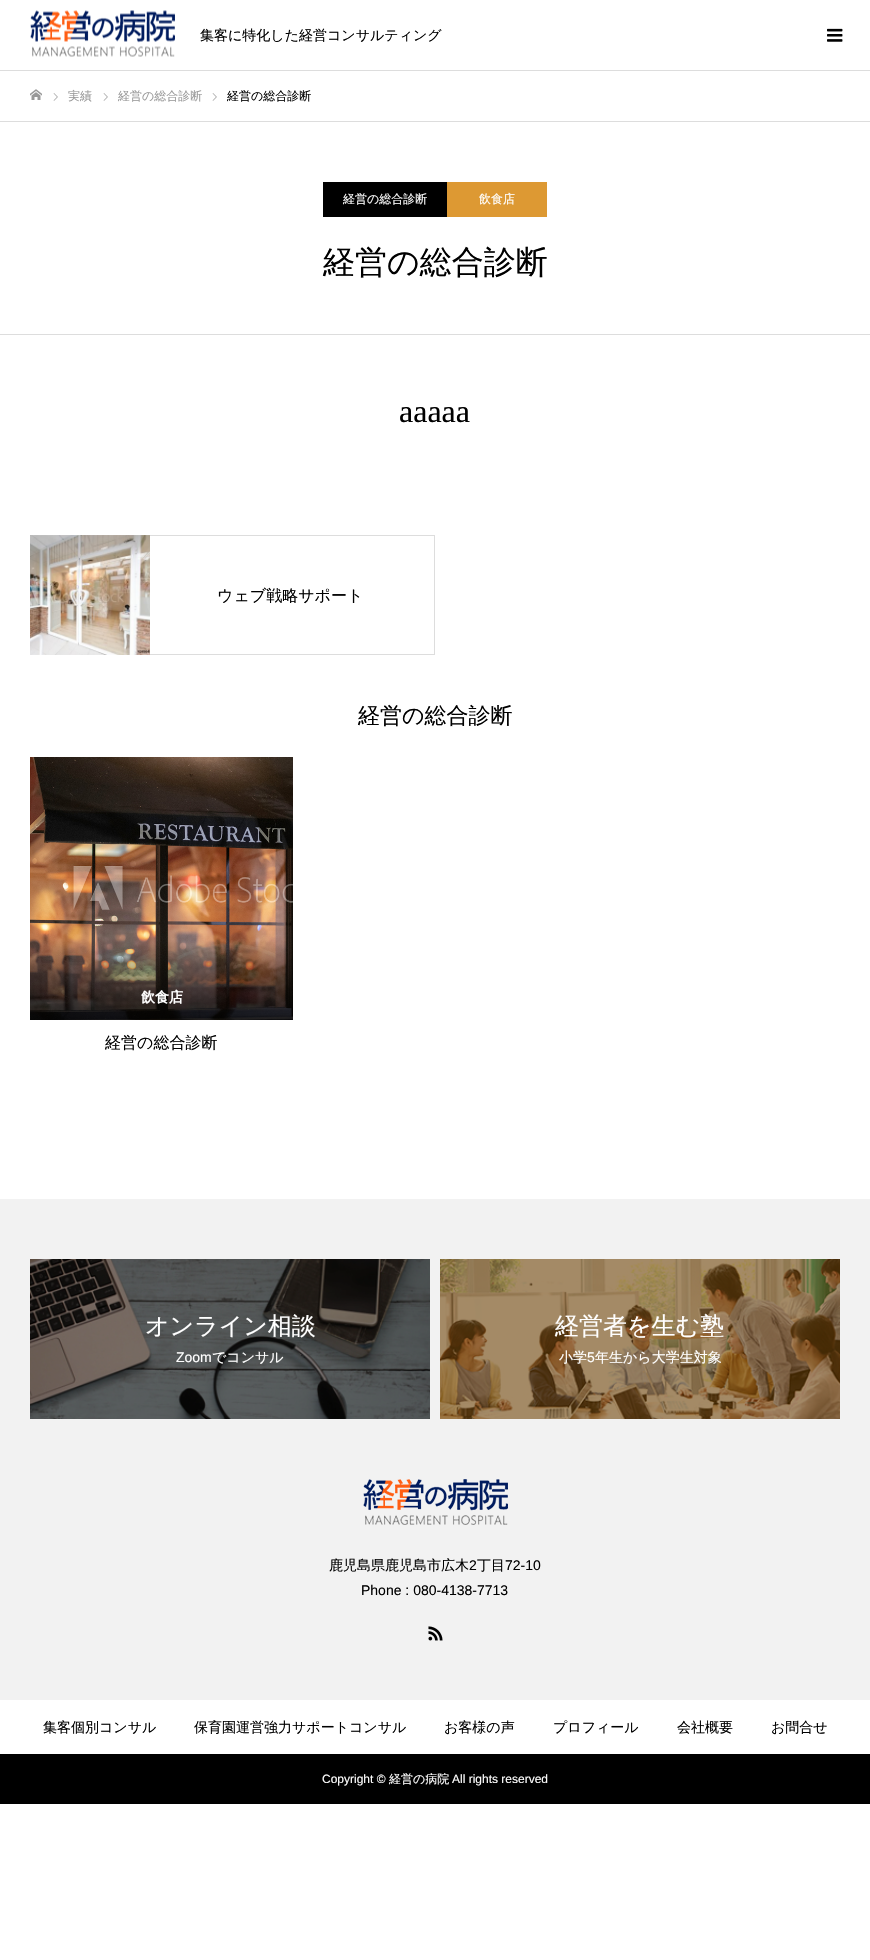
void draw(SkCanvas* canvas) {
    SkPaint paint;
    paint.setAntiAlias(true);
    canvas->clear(0xFFFFFFFF);
    canvas->drawImageRect(SkImages::DeferredFromEncodedData(SkData::MakeFromFileName("img1.png")), SkRect::MakeXYWH(30, 10, 145, 47), SkSamplingOptions());
    SkFont font1(fontMgr->matchFamilyStyle("WenQuanYi Zen Hei", SkFontStyle(500, SkFontStyle::kNormal_Width, SkFontStyle::kUpright_Slant)), 14);
    font1.setSubpixel(true);
    paint.setColor(0xFF000000);
    canvas->drawString("集客に特化した経営コンサルティング", 200, 40, font1, paint);
    canvas->drawImageRect(SkImages::DeferredFromEncodedData(SkData::MakeFromFileName("img2.png")), SkRect::MakeXYWH(827, 28, 16, 14), SkSamplingOptions());
    paint.setColor(0xFFDDDDDD);
    canvas->drawRect(SkRect::MakeXYWH(0, 70, 870, 1), paint);
    canvas->drawRect(SkRect::MakeXYWH(0, 121, 870, 1), paint);
    canvas->drawImageRect(SkImages::DeferredFromEncodedData(SkData::MakeFromFileName("img3.png")), SkRect::MakeXYWH(30, 89, 12, 11), SkSamplingOptions());
    canvas->drawImageRect(SkImages::DeferredFromEncodedData(SkData::MakeFromFileName("img4.png")), SkRect::MakeXYWH(53, 93, 5, 8), SkSamplingOptions());
    SkFont font2(fontMgr->matchFamilyStyle("WenQuanYi Zen Hei", SkFontStyle(500, SkFontStyle::kNormal_Width, SkFontStyle::kUpright_Slant)), 12);
    font2.setSubpixel(true);
    paint.setColor(0xFF999999);
    canvas->drawString("実績", 68, 100, font2, paint);
    canvas->drawImageRect(SkImages::DeferredFromEncodedData(SkData::MakeFromFileName("img4.png")), SkRect::MakeXYWH(103, 93, 5, 8), SkSamplingOptions());
    canvas->drawString("経営の総合診断", 118, 100, font2, paint);
    canvas->drawImageRect(SkImages::DeferredFromEncodedData(SkData::MakeFromFileName("img4.png")), SkRect::MakeXYWH(212, 93, 5, 8), SkSamplingOptions());
    paint.setColor(0xFF000000);
    canvas->drawString("経営の総合診断", 227, 100, font2, paint);
    paint.setColor(0xFFDDDDDD);
    canvas->drawRect(SkRect::MakeXYWH(0, 334, 870, 1), paint);
    paint.setColor(0xFF000000);
    canvas->drawRect(SkRect::MakeXYWH(323, 182, 124, 35), paint);
    paint.setColor(0xFFFFFFFF);
    canvas->drawString("経営の総合診断", 343, 203, font2, paint);
    paint.setColor(0xFFDD9933);
    canvas->drawRect(SkRect::MakeXYWH(447, 182, 100, 35), paint);
    paint.setColor(0xFFFFFFFF);
    canvas->drawString("飲食店", 479, 203, font2, paint);
    SkFont font3(fontMgr->matchFamilyStyle("WenQuanYi Zen Hei", SkFontStyle(500, SkFontStyle::kNormal_Width, SkFontStyle::kUpright_Slant)), 32);
    font3.setSubpixel(true);
    paint.setColor(0xFF000000);
    canvas->drawString("経営の総合診断", 323, 273, font3, paint);
    SkFont font4(fontMgr->matchFamilyStyle("Liberation Serif", SkFontStyle::Normal()), 32);
    font4.setSubpixel(true);
    canvas->drawString("aaaaa", 399, 422, font4, paint);
    paint.setStyle(SkPaint::kStroke_Style);
    paint.setStrokeWidth(1);
    paint.setColor(0xFFDDDDDD);
    canvas->drawRect(SkRect::MakeXYWH(30.5f, 535.5f, 404, 119), paint);
    canvas->drawImageRect(SkImages::DeferredFromEncodedData(SkData::MakeFromFileName("img5.png")), SkRect::MakeXYWH(30, 535, 120, 120), SkSamplingOptions());
    SkFont font5(fontMgr->matchFamilyStyle("WenQuanYi Zen Hei", SkFontStyle(500, SkFontStyle::kNormal_Width, SkFontStyle::kUpright_Slant)), 16);
    font5.setSubpixel(true);
    paint.setStyle(SkPaint::kFill_Style);
    paint.setColor(0xFF000000);
    canvas->drawString("ウェブ戦略サポート", 217, 601, font5, paint);
    SkFont font6(fontMgr->matchFamilyStyle("WenQuanYi Zen Hei", SkFontStyle(500, SkFontStyle::kNormal_Width, SkFontStyle::kUpright_Slant)), 22);
    font6.setSubpixel(true);
    canvas->drawString("経営の総合診断", 358, 723, font6, paint);
    canvas->drawImageRect(SkImages::DeferredFromEncodedData(SkData::MakeFromFileName("img6.png")), SkRect::MakeXYWH(30, 757, 263, 263), SkSamplingOptions());
    SkFont font7(fontMgr->matchFamilyStyle("WenQuanYi Zen Hei", SkFontStyle::Bold()), 14);
    font7.setSubpixel(true);
    paint.setColor(0xFFFFFFFF);
    canvas->drawString("飲食店", 141, 1002, font7, paint);
    paint.setColor(0xFF000000);
    canvas->drawString("経営の総合診断", 105, 1048, font5, paint);
    paint.setColor(0xFFF2F2F2);
    canvas->drawRect(SkRect::MakeXYWH(0, 1199, 870, 501), paint);
    canvas->drawImageRect(SkImages::DeferredFromEncodedData(SkData::MakeFromFileName("img7.png")), SkRect::MakeXYWH(30, 1259, 400, 160), SkSamplingOptions());
    SkFont font8(fontMgr->matchFamilyStyle("WenQuanYi Zen Hei", SkFontStyle(500, SkFontStyle::kNormal_Width, SkFontStyle::kUpright_Slant)), 24);
    font8.setSubpixel(true);
    paint.setColor(0xFFFFFFFF);
    canvas->drawString("オンライン相談", 145, 1334, font8, paint);
    SkFont font9(fontMgr->matchFamilyStyle("Liberation Sans", SkFontStyle::Normal()), 14);
    font9.setSubpixel(true);
    canvas->drawString("Zoom", 176, 1362, font9, paint);
    canvas->drawString("でコンサル", 212, 1362, font1, paint);
    canvas->drawImageRect(SkImages::DeferredFromEncodedData(SkData::MakeFromFileName("img8.png")), SkRect::MakeXYWH(440, 1259, 400, 160), SkSamplingOptions());
    canvas->drawString("経営者を生む塾", 555, 1334, font8, paint);
    canvas->drawString("小学", 559, 1362, font1, paint);
    canvas->drawString("5", 587, 1362, font9, paint);
    canvas->drawString("年生から大学生対象", 595, 1362, font1, paint);
    canvas->drawImageRect(SkImages::DeferredFromEncodedData(SkData::MakeFromFileName("img9.png")), SkRect::MakeXYWH(363, 1479, 145, 46), SkSamplingOptions());
    paint.setColor(0xFF000000);
    canvas->drawString("鹿児島県鹿児島市広木", 329, 1570, font1, paint);
    canvas->drawString("2", 469, 1570, font9, paint);
    canvas->drawString("丁目", 477, 1570, font1, paint);
    canvas->drawString("72-10", 505, 1570, font9, paint);
    canvas->drawString("Phone : 080-4138-7713", 361, 1595, font9, paint);
    canvas->drawImageRect(SkImages::DeferredFromEncodedData(SkData::MakeFromFileName("img10.png")), SkRect::MakeXYWH(428, 1626, 15, 15), SkSamplingOptions());
    canvas->drawString("集客個別コンサル", 43, 1732, font1, paint);
    canvas->drawString("保育園運営強力サポートコンサル", 194, 1732, font1, paint);
    canvas->drawString("お客様の声", 444, 1732, font1, paint);
    canvas->drawString("プロフィール", 553, 1732, font1, paint);
    canvas->drawString("会社概要", 677, 1732, font1, paint);
    canvas->drawString("お問合せ", 771, 1732, font1, paint);
    canvas->drawRect(SkRect::MakeXYWH(0, 1754, 870, 50), paint);
    SkFont font10(fontMgr->matchFamilyStyle("Liberation Sans", SkFontStyle::Normal()), 12);
    font10.setSubpixel(true);
    paint.setColor(0xFFFFFFFF);
    canvas->drawString("Copyright ©", 322, 1783, font10, paint);
    canvas->drawString("経営の病院", 389, 1783, font2, paint);
    canvas->drawString("All rights reserved", 452, 1783, font10, paint);
}
